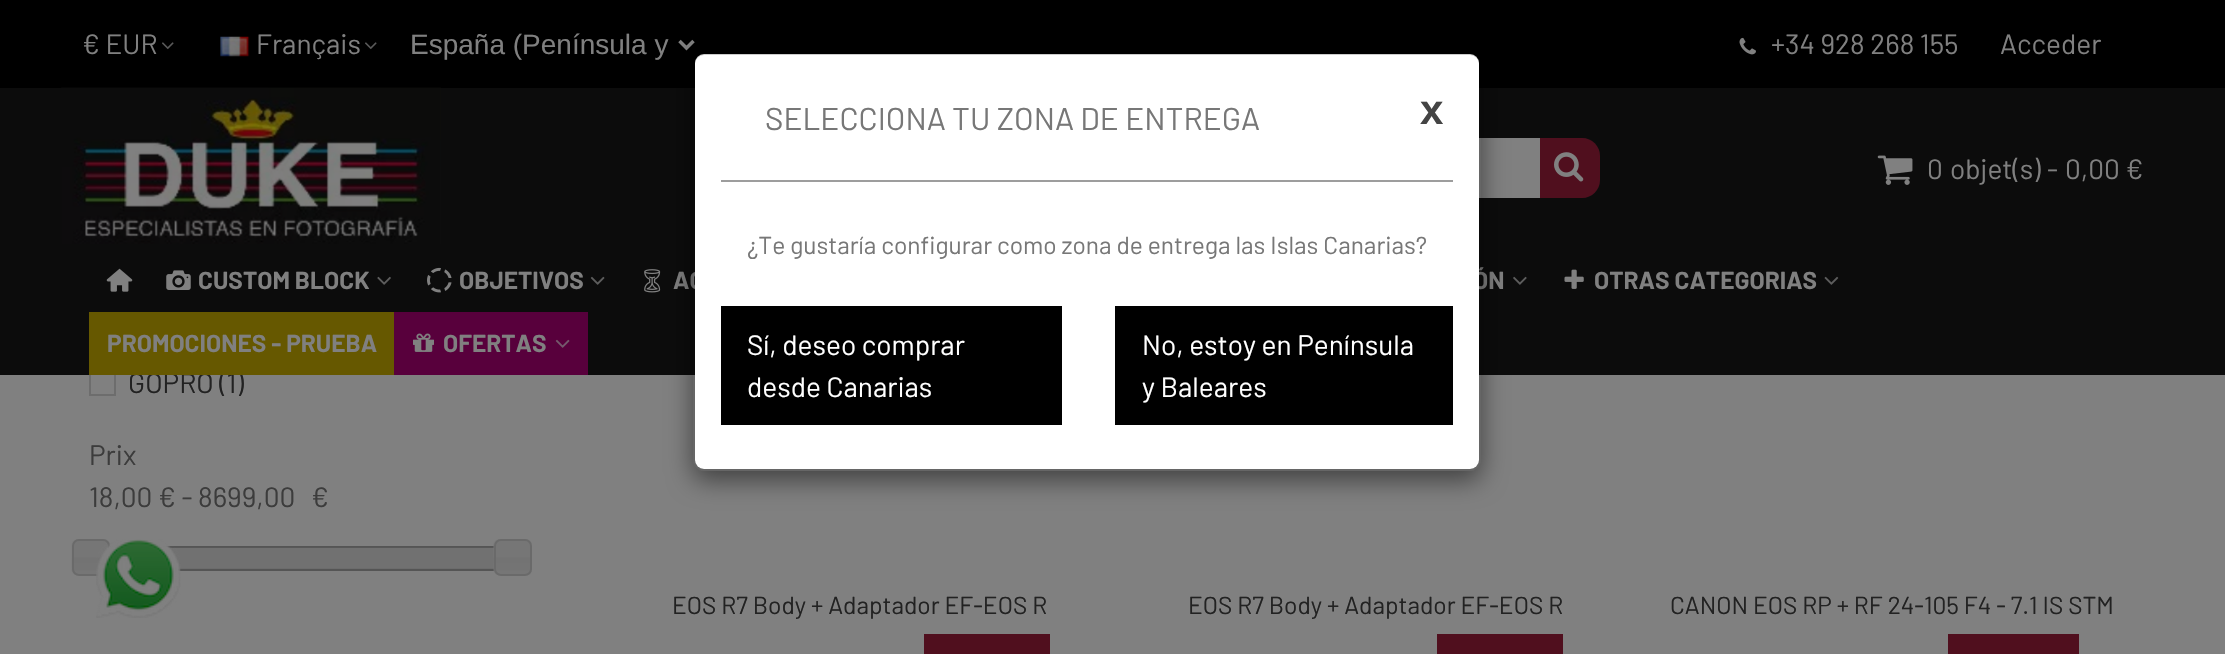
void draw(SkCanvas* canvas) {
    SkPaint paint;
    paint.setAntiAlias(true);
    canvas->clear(0xFF808080);
    paint.setColor(0xFF000000);
    canvas->drawRect(SkRect::MakeXYWH(0, 0, 2225, 88), paint);
    SkFont font1(fontMgr->matchFamilyStyle("Barlow", SkFontStyle::Normal()), 28);
    font1.setSubpixel(true);
    paint.setColor(0xFF808080);
    canvas->drawString("€ EUR", 82, 54, font1, paint);
    canvas->drawImageRect(SkImages::DeferredFromEncodedData(SkData::MakeFromFileName("img1.png")), SkRect::MakeXYWH(162, 42, 12, 8), SkSamplingOptions());
    canvas->drawImageRect(SkImages::DeferredFromEncodedData(SkData::MakeFromFileName("img2.png")), SkRect::MakeXYWH(220, 36, 30, 21), SkSamplingOptions());
    canvas->drawString("Français", 256, 54, font1, paint);
    canvas->drawImageRect(SkImages::DeferredFromEncodedData(SkData::MakeFromFileName("img1.png")), SkRect::MakeXYWH(365, 42, 12, 8), SkSamplingOptions());
    paint.setStyle(SkPaint::kStroke_Style);
    paint.setStrokeWidth(3.5f);
    canvas->drawPath(SkPathBuilder().moveTo(679.5f, 41).lineTo(686.5f, 48).lineTo(693.5f, 41).detach(), paint);
    SkFont font2(fontMgr->matchFamilyStyle("Liberation Sans", SkFontStyle::Normal()), 28);
    font2.setSubpixel(true);
    paint.setStyle(SkPaint::kFill_Style);
    canvas->drawString("España (Península y", 410, 54, font2, paint);
    canvas->drawImageRect(SkImages::DeferredFromEncodedData(SkData::MakeFromFileName("img3.png")), SkRect::MakeXYWH(1739, 37, 17, 18), SkSamplingOptions());
    canvas->drawString("+34 928 268 155", 1771, 54, font1, paint);
    canvas->drawString("Acceder", 2000, 54, font1, paint);
    paint.setStyle(SkPaint::kStroke_Style);
    paint.setStrokeWidth(2);
    paint.setColor(0xFF6D6D6D);
    canvas->drawRect(SkRect::MakeXYWH(90, 370, 25, 25), paint);
    paint.setStyle(SkPaint::kFill_Style);
    paint.setColor(0xFF222222);
    canvas->drawString("GOPRO (1)", 128, 393, font1, paint);
    paint.setColor(0xFF0C0C0C);
    canvas->drawRect(SkRect::MakeXYWH(0, 88, 2225, 287), paint);
    canvas->drawImageRect(SkImages::DeferredFromEncodedData(SkData::MakeFromFileName("img4.png")), SkRect::MakeXYWH(61, 87, 380, 157), SkSamplingOptions());
    paint.setColor(0xFF808080);
    canvas->drawRect(SkRect::MakeXYWH(1479, 138, 61, 60), paint);
    paint.setColor(0xFF500F1E);
    canvas->drawPath(SkPathBuilder().moveTo(1540, 138).lineTo(1582, 138).cubicTo(1592, 138, 1600, 146, 1600, 156).lineTo(1600, 180).cubicTo(1600, 190, 1592, 198, 1582, 198).lineTo(1540, 198).close().detach(), paint);
    canvas->drawImageRect(SkImages::DeferredFromEncodedData(SkData::MakeFromFileName("img5.png")), SkRect::MakeXYWH(1554, 152, 30, 30), SkSamplingOptions());
    canvas->drawImageRect(SkImages::DeferredFromEncodedData(SkData::MakeFromFileName("img6.png")), SkRect::MakeXYWH(1877, 155, 36, 30), SkSamplingOptions());
    paint.setColor(0xFF808080);
    canvas->drawString("0", 1927, 179, font1, paint);
    canvas->drawString("objet(s)", 1950, 179, font1, paint);
    canvas->drawString("-", 2047, 179, font1, paint);
    canvas->drawString("0,00 €", 2065, 179, font1, paint);
    canvas->drawImageRect(SkImages::DeferredFromEncodedData(SkData::MakeFromFileName("img7.png")), SkRect::MakeXYWH(106, 268, 27, 24), SkSamplingOptions());
    canvas->drawImageRect(SkImages::DeferredFromEncodedData(SkData::MakeFromFileName("img8.png")), SkRect::MakeXYWH(166, 270, 25, 20), SkSamplingOptions());
    SkFont font3(fontMgr->matchFamilyStyle("Barlow", SkFontStyle::Bold()), 24.5f);
    font3.setSubpixel(true);
    canvas->drawString("CUSTOM BLOCK", 198, 289, font3, paint);
    canvas->drawImageRect(SkImages::DeferredFromEncodedData(SkData::MakeFromFileName("img9.png")), SkRect::MakeXYWH(377, 276, 14, 9), SkSamplingOptions());
    canvas->drawImageRect(SkImages::DeferredFromEncodedData(SkData::MakeFromFileName("img10.png")), SkRect::MakeXYWH(427, 267, 25, 26), SkSamplingOptions());
    canvas->drawString("OBJETIVOS", 459, 289, font3, paint);
    canvas->drawImageRect(SkImages::DeferredFromEncodedData(SkData::MakeFromFileName("img11.png")), SkRect::MakeXYWH(590, 276, 15, 9), SkSamplingOptions());
    canvas->drawImageRect(SkImages::DeferredFromEncodedData(SkData::MakeFromFileName("img12.png")), SkRect::MakeXYWH(644, 269, 17, 24), SkSamplingOptions());
    canvas->drawString("AC", 673, 289, font3, paint);
    canvas->drawString("ÓN", 1473, 289, font3, paint);
    canvas->drawImageRect(SkImages::DeferredFromEncodedData(SkData::MakeFromFileName("img13.png")), SkRect::MakeXYWH(1513, 276, 14, 9), SkSamplingOptions());
    canvas->drawImageRect(SkImages::DeferredFromEncodedData(SkData::MakeFromFileName("img14.png")), SkRect::MakeXYWH(1564, 269, 20, 20), SkSamplingOptions());
    canvas->drawString("OTRAS CATEGORIAS", 1594, 289, font3, paint);
    canvas->drawImageRect(SkImages::DeferredFromEncodedData(SkData::MakeFromFileName("img15.png")), SkRect::MakeXYWH(1824, 276, 15, 9), SkSamplingOptions());
    paint.setColor(0xFF665800);
    canvas->drawRect(SkRect::MakeXYWH(89, 312, 305, 63), paint);
    paint.setColor(0xFF808080);
    canvas->drawString("PROMOCIONES - PRUEBA", 107, 352, font3, paint);
    paint.setColor(0xFF58003C);
    canvas->drawRect(SkRect::MakeXYWH(394, 312, 194, 63), paint);
    canvas->drawImageRect(SkImages::DeferredFromEncodedData(SkData::MakeFromFileName("img16.png")), SkRect::MakeXYWH(413, 333, 21, 19), SkSamplingOptions());
    paint.setColor(0xFF808080);
    canvas->drawString("OFERTAS", 443, 352, font3, paint);
    canvas->drawImageRect(SkImages::DeferredFromEncodedData(SkData::MakeFromFileName("img17.png")), SkRect::MakeXYWH(555, 339, 15, 9), SkSamplingOptions());
    paint.setColor(0xFF3C3C3C);
    canvas->drawString("Prix", 89, 465, font1, paint);
    canvas->drawString("18,00 € - 8 699,00", 89, 507, font1, paint);
    canvas->drawString("€", 311, 507, font1, paint);
    paint.setStyle(SkPaint::kStroke_Style);
    paint.setColor(0xFF555555);
    canvas->drawRect(SkRect::MakeXYWH(90, 547, 424, 23), paint);
    paint.setStyle(SkPaint::kFill_Style);
    paint.setColor(0xFF666666);
    canvas->drawRect(SkRect::MakeXYWH(175, 568, 319, 1), paint);
    canvas->drawImageRect(SkImages::DeferredFromEncodedData(SkData::MakeFromFileName("img19.png")), SkRect::MakeXYWH(110, 547, 384, 22), SkSamplingOptions());
    canvas->drawImageRect(SkImages::DeferredFromEncodedData(SkData::MakeFromFileName("img18.png")), SkRect::MakeXYWH(71, 539, 40, 36), SkSamplingOptions());
    paint.setStyle(SkPaint::kStroke_Style);
    paint.setColor(0xFF6A6A6A);
    canvas->drawRoundRect(SkRect::MakeXYWH(73, 540, 36, 35), 6, 6, paint);
    canvas->drawImageRect(SkImages::DeferredFromEncodedData(SkData::MakeFromFileName("img20.png")), SkRect::MakeXYWH(493, 539, 39, 36), SkSamplingOptions());
    canvas->drawRoundRect(SkRect::MakeXYWH(495, 540, 36, 35), 6, 6, paint);
    SkFont font4(fontMgr->matchFamilyStyle("Barlow", SkFontStyle::Normal()), 24.5f);
    font4.setSubpixel(true);
    paint.setStyle(SkPaint::kFill_Style);
    paint.setColor(0xFF222222);
    canvas->drawString("EOS R7 Body + Adaptador EF-EOS R", 672, 614, font4, paint);
    paint.setColor(0xFF500F1E);
    canvas->drawRect(SkRect::MakeXYWH(924, 634, 126, 20), paint);
    paint.setColor(0xFF222222);
    canvas->drawString("EOS R7 Body + Adaptador EF-EOS R", 1188, 614, font4, paint);
    paint.setColor(0xFF500F1E);
    canvas->drawRect(SkRect::MakeXYWH(1437, 634, 126, 20), paint);
    paint.setColor(0xFF222222);
    canvas->drawString("CANON EOS RP + RF 24-105 F4 - 7.1 IS STM", 1670, 614, font4, paint);
    paint.setColor(0xFF500F1E);
    canvas->drawRect(SkRect::MakeXYWH(1948, 634, 131, 20), paint);
    canvas->drawImageRect(SkImages::DeferredFromEncodedData(SkData::MakeFromFileName("img21.png")), SkRect::MakeXYWH(96, 539, 85, 79), SkSamplingOptions());
    canvas->save();
    canvas->clipPath(SkPathBuilder(SkPathFillType::kEvenOdd).moveTo(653, 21).lineTo(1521, 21).lineTo(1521, 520).lineTo(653, 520).close().moveTo(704, 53).lineTo(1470, 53).cubicTo(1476, 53, 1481, 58, 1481, 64).lineTo(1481, 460).cubicTo(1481, 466, 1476, 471, 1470, 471).lineTo(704, 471).cubicTo(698, 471, 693, 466, 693, 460).lineTo(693, 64).cubicTo(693, 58, 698, 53, 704, 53).close().detach(), true);
    paint.setColor(0x80000000);
    paint.setMaskFilter(SkMaskFilter::MakeBlur(kNormal_SkBlurStyle, 13));
    canvas->drawRoundRect(SkRect::MakeXYWH(693, 61, 788, 419), 11, 11, paint);
    paint.setMaskFilter(nullptr);
    canvas->restore();
    paint.setColor(0xFFFFFFFF);
    canvas->drawRoundRect(SkRect::MakeXYWH(695, 54, 784, 415), 9, 9, paint);
    paint.setStyle(SkPaint::kStroke_Style);
    paint.setColor(0x33000000);
    canvas->drawRoundRect(SkRect::MakeXYWH(694, 54, 786, 416), 10, 10, paint);
    paint.setStyle(SkPaint::kFill_Style);
    paint.setColor(0xFF9D9D9D);
    canvas->drawRect(SkRect::MakeXYWH(721, 180, 732, 2), paint);
    SkFont font5(fontMgr->matchFamilyStyle("Barlow", SkFontStyle::Normal()), 31.5f);
    font5.setSubpixel(true);
    paint.setColor(0xFF777777);
    canvas->drawString("SELECCIONA TU ZONA DE ENTREGA", 765, 130, font5, paint);
    SkFont font6(fontMgr->matchFamilyStyle("Liberation Sans", SkFontStyle::Bold()), 42);
    font6.setSubpixel(true);
    paint.setColor(0xFF444444);
    canvas->drawString("x", 1420, 124, font6, paint);
    paint.setColor(0xFF777777);
    canvas->drawString("¿Te gustaría configurar como zona de entrega las Islas Canarias?", 747, 254, font4, paint);
    paint.setColor(0xFF000000);
    canvas->drawRect(SkRect::MakeXYWH(721, 306, 341, 119), paint);
    paint.setColor(0xFFFFFFFF);
    canvas->drawString("Sí, deseo comprar", 747, 355, font1, paint);
    canvas->drawString("desde Canarias", 747, 397, font1, paint);
    paint.setColor(0xFF000000);
    canvas->drawRect(SkRect::MakeXYWH(1115, 306, 338, 119), paint);
    paint.setColor(0xFFFFFFFF);
    canvas->drawString("No, estoy en Península", 1142, 355, font1, paint);
    canvas->drawString("y Baleares", 1142, 397, font1, paint);
}
